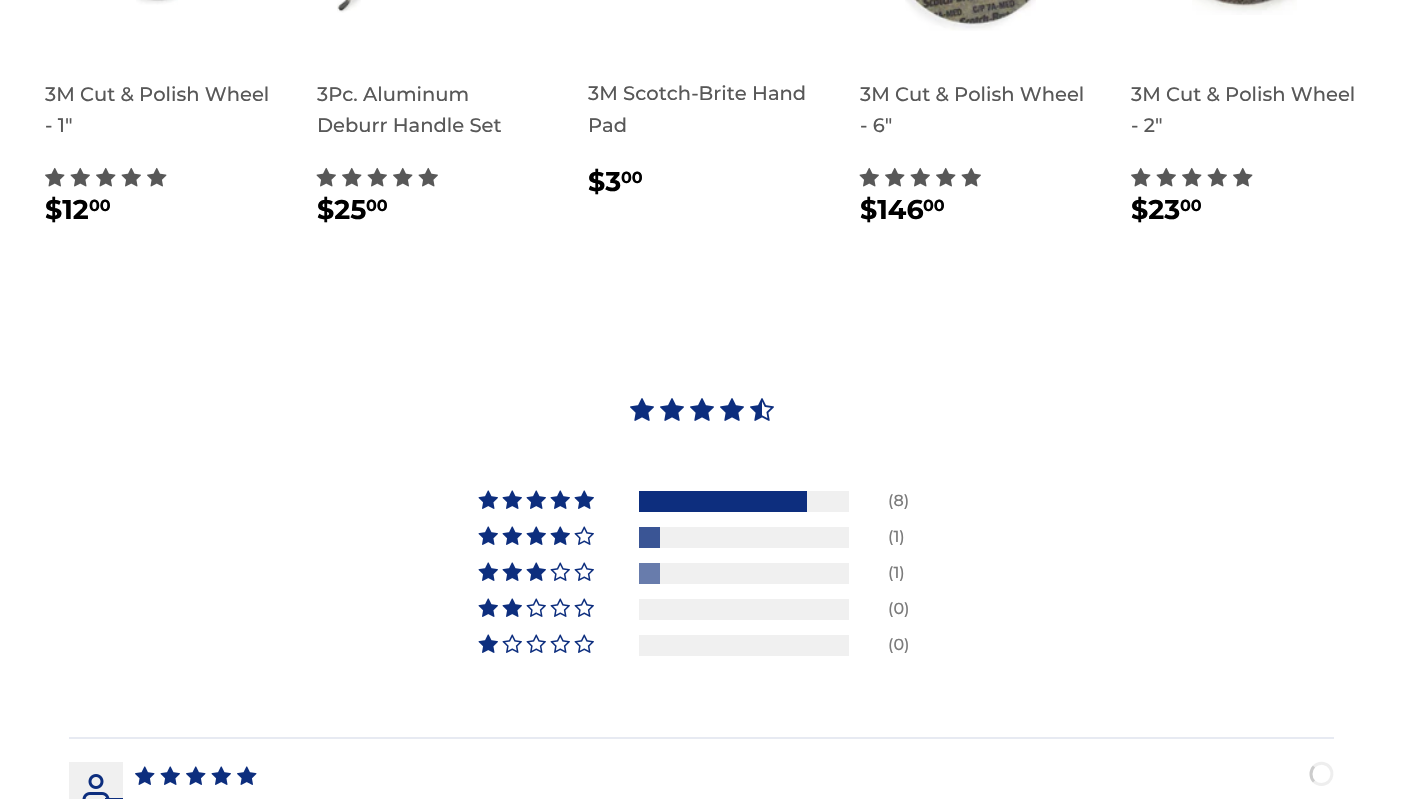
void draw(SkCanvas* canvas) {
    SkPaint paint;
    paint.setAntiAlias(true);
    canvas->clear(0xFFFFFFFF);
    canvas->drawImageRect(SkImages::DeferredFromEncodedData(SkData::MakeFromFileName("img1.png")), SkRect::MakeXYWH(136, 0, 42, 5), SkSamplingOptions());
    SkFont font1(fontMgr->matchFamilyStyle("Montserrat", SkFontStyle(500, SkFontStyle::kNormal_Width, SkFontStyle::kUpright_Slant)), 19.5f);
    font1.setSubpixel(true);
    paint.setColor(0xFF585858);
    canvas->drawString("3M Cut & Polish Wheel", 45, 101, font1, paint);
    canvas->drawString("- 1\"", 45, 132, font1, paint);
    canvas->drawImageRect(SkImages::DeferredFromEncodedData(SkData::MakeFromFileName("img2.png")), SkRect::MakeXYWH(45, 167, 20, 20), SkSamplingOptions());
    canvas->drawImageRect(SkImages::DeferredFromEncodedData(SkData::MakeFromFileName("img3.png")), SkRect::MakeXYWH(70, 167, 20, 20), SkSamplingOptions());
    canvas->drawImageRect(SkImages::DeferredFromEncodedData(SkData::MakeFromFileName("img2.png")), SkRect::MakeXYWH(96, 167, 20, 20), SkSamplingOptions());
    canvas->drawImageRect(SkImages::DeferredFromEncodedData(SkData::MakeFromFileName("img3.png")), SkRect::MakeXYWH(121, 167, 20, 20), SkSamplingOptions());
    canvas->drawImageRect(SkImages::DeferredFromEncodedData(SkData::MakeFromFileName("img2.png")), SkRect::MakeXYWH(147, 167, 20, 20), SkSamplingOptions());
    SkFont font2(fontMgr->matchFamilyStyle("Montserrat", SkFontStyle::Bold()), 27);
    font2.setSubpixel(true);
    paint.setColor(0xFF000000);
    canvas->drawString("$12", 45, 219, font2, paint);
    SkFont font3(fontMgr->matchFamilyStyle("Montserrat", SkFontStyle::Bold()), 16);
    font3.setSubpixel(true);
    canvas->drawString("00", 89, 211, font3, paint);
    canvas->drawImageRect(SkImages::DeferredFromEncodedData(SkData::MakeFromFileName("img4.png")), SkRect::MakeXYWH(337, 0, 24, 13), SkSamplingOptions());
    paint.setColor(0xFF585858);
    canvas->drawString("3Pc. Aluminum", 317, 101, font1, paint);
    canvas->drawString("Deburr Handle Set", 317, 132, font1, paint);
    canvas->drawImageRect(SkImages::DeferredFromEncodedData(SkData::MakeFromFileName("img3.png")), SkRect::MakeXYWH(316, 167, 20, 20), SkSamplingOptions());
    canvas->drawImageRect(SkImages::DeferredFromEncodedData(SkData::MakeFromFileName("img2.png")), SkRect::MakeXYWH(342, 167, 20, 20), SkSamplingOptions());
    canvas->drawImageRect(SkImages::DeferredFromEncodedData(SkData::MakeFromFileName("img3.png")), SkRect::MakeXYWH(367, 167, 20, 20), SkSamplingOptions());
    canvas->drawImageRect(SkImages::DeferredFromEncodedData(SkData::MakeFromFileName("img2.png")), SkRect::MakeXYWH(393, 167, 20, 20), SkSamplingOptions());
    canvas->drawImageRect(SkImages::DeferredFromEncodedData(SkData::MakeFromFileName("img3.png")), SkRect::MakeXYWH(418, 167, 20, 20), SkSamplingOptions());
    paint.setColor(0xFF000000);
    canvas->drawString("$25", 317, 219, font2, paint);
    canvas->drawString("00", 366, 211, font3, paint);
    paint.setColor(0xFF585858);
    canvas->drawString("3M Scotch-Brite Hand", 588, 100, font1, paint);
    canvas->drawString("Pad", 588, 132, font1, paint);
    paint.setColor(0xFF000000);
    canvas->drawString("$3", 588, 191, font2, paint);
    canvas->drawString("00", 621, 183, font3, paint);
    canvas->drawImageRect(SkImages::DeferredFromEncodedData(SkData::MakeFromFileName("img5.png")), SkRect::MakeXYWH(905, 0, 131, 31), SkSamplingOptions());
    paint.setColor(0xFF585858);
    canvas->drawString("3M Cut & Polish Wheel", 860, 101, font1, paint);
    canvas->drawString("- 6\"", 860, 132, font1, paint);
    canvas->drawImageRect(SkImages::DeferredFromEncodedData(SkData::MakeFromFileName("img3.png")), SkRect::MakeXYWH(859, 167, 20, 20), SkSamplingOptions());
    canvas->drawImageRect(SkImages::DeferredFromEncodedData(SkData::MakeFromFileName("img2.png")), SkRect::MakeXYWH(885, 167, 20, 20), SkSamplingOptions());
    canvas->drawImageRect(SkImages::DeferredFromEncodedData(SkData::MakeFromFileName("img3.png")), SkRect::MakeXYWH(910, 167, 20, 20), SkSamplingOptions());
    canvas->drawImageRect(SkImages::DeferredFromEncodedData(SkData::MakeFromFileName("img2.png")), SkRect::MakeXYWH(936, 167, 20, 20), SkSamplingOptions());
    canvas->drawImageRect(SkImages::DeferredFromEncodedData(SkData::MakeFromFileName("img3.png")), SkRect::MakeXYWH(961, 167, 20, 20), SkSamplingOptions());
    paint.setColor(0xFF000000);
    canvas->drawString("$146", 860, 219, font2, paint);
    canvas->drawString("00", 923, 211, font3, paint);
    canvas->drawImageRect(SkImages::DeferredFromEncodedData(SkData::MakeFromFileName("img6.png")), SkRect::MakeXYWH(1192, 0, 105, 15), SkSamplingOptions());
    paint.setColor(0xFF585858);
    canvas->drawString("3M Cut & Polish Wheel", 1131, 101, font1, paint);
    canvas->drawString("- 2\"", 1131, 132, font1, paint);
    canvas->drawImageRect(SkImages::DeferredFromEncodedData(SkData::MakeFromFileName("img2.png")), SkRect::MakeXYWH(1131, 167, 20, 20), SkSamplingOptions());
    canvas->drawImageRect(SkImages::DeferredFromEncodedData(SkData::MakeFromFileName("img3.png")), SkRect::MakeXYWH(1156, 167, 20, 20), SkSamplingOptions());
    canvas->drawImageRect(SkImages::DeferredFromEncodedData(SkData::MakeFromFileName("img2.png")), SkRect::MakeXYWH(1182, 167, 20, 20), SkSamplingOptions());
    canvas->drawImageRect(SkImages::DeferredFromEncodedData(SkData::MakeFromFileName("img3.png")), SkRect::MakeXYWH(1207, 167, 20, 20), SkSamplingOptions());
    canvas->drawImageRect(SkImages::DeferredFromEncodedData(SkData::MakeFromFileName("img2.png")), SkRect::MakeXYWH(1233, 167, 20, 20), SkSamplingOptions());
    paint.setColor(0xFF000000);
    canvas->drawString("$23", 1131, 219, font2, paint);
    canvas->drawString("00", 1180, 211, font3, paint);
    canvas->drawImageRect(SkImages::DeferredFromEncodedData(SkData::MakeFromFileName("img7.png")), SkRect::MakeXYWH(630, 398, 24, 23), SkSamplingOptions());
    canvas->drawImageRect(SkImages::DeferredFromEncodedData(SkData::MakeFromFileName("img7.png")), SkRect::MakeXYWH(660, 398, 24, 23), SkSamplingOptions());
    canvas->drawImageRect(SkImages::DeferredFromEncodedData(SkData::MakeFromFileName("img7.png")), SkRect::MakeXYWH(690, 398, 24, 23), SkSamplingOptions());
    canvas->drawImageRect(SkImages::DeferredFromEncodedData(SkData::MakeFromFileName("img7.png")), SkRect::MakeXYWH(720, 398, 24, 23), SkSamplingOptions());
    canvas->drawImageRect(SkImages::DeferredFromEncodedData(SkData::MakeFromFileName("img8.png")), SkRect::MakeXYWH(750, 398, 24, 23), SkSamplingOptions());
    canvas->drawImageRect(SkImages::DeferredFromEncodedData(SkData::MakeFromFileName("img9.png")), SkRect::MakeXYWH(478, 490, 20, 19), SkSamplingOptions());
    canvas->drawImageRect(SkImages::DeferredFromEncodedData(SkData::MakeFromFileName("img9.png")), SkRect::MakeXYWH(502, 490, 20, 19), SkSamplingOptions());
    canvas->drawImageRect(SkImages::DeferredFromEncodedData(SkData::MakeFromFileName("img9.png")), SkRect::MakeXYWH(526, 490, 20, 19), SkSamplingOptions());
    canvas->drawImageRect(SkImages::DeferredFromEncodedData(SkData::MakeFromFileName("img9.png")), SkRect::MakeXYWH(550, 490, 20, 19), SkSamplingOptions());
    canvas->drawImageRect(SkImages::DeferredFromEncodedData(SkData::MakeFromFileName("img9.png")), SkRect::MakeXYWH(574, 490, 20, 19), SkSamplingOptions());
    paint.setColor(0xFFF0F0F0);
    canvas->drawRect(SkRect::MakeXYWH(807, 491, 42, 21), paint);
    paint.setColor(0xFF0D2E7E);
    canvas->drawRect(SkRect::MakeXYWH(639, 491, 168, 21), paint);
    SkFont font4(fontMgr->matchFamilyStyle("Montserrat", SkFontStyle(500, SkFontStyle::kNormal_Width, SkFontStyle::kUpright_Slant)), 16);
    font4.setSubpixel(true);
    paint.setColor(0xFF7B7B7B);
    canvas->drawString("(8)", 888, 506, font4, paint);
    canvas->drawImageRect(SkImages::DeferredFromEncodedData(SkData::MakeFromFileName("img9.png")), SkRect::MakeXYWH(478, 526, 20, 19), SkSamplingOptions());
    canvas->drawImageRect(SkImages::DeferredFromEncodedData(SkData::MakeFromFileName("img9.png")), SkRect::MakeXYWH(502, 526, 20, 19), SkSamplingOptions());
    canvas->drawImageRect(SkImages::DeferredFromEncodedData(SkData::MakeFromFileName("img9.png")), SkRect::MakeXYWH(526, 526, 20, 19), SkSamplingOptions());
    canvas->drawImageRect(SkImages::DeferredFromEncodedData(SkData::MakeFromFileName("img9.png")), SkRect::MakeXYWH(550, 526, 20, 19), SkSamplingOptions());
    canvas->drawImageRect(SkImages::DeferredFromEncodedData(SkData::MakeFromFileName("img10.png")), SkRect::MakeXYWH(574, 526, 20, 19), SkSamplingOptions());
    paint.setColor(0xFFF0F0F0);
    canvas->drawRect(SkRect::MakeXYWH(660, 527, 189, 21), paint);
    paint.setColor(0xFF3A5595);
    canvas->drawRect(SkRect::MakeXYWH(639, 527, 21, 21), paint);
    paint.setColor(0xFF7B7B7B);
    canvas->drawString("(1)", 888, 542, font4, paint);
    canvas->drawImageRect(SkImages::DeferredFromEncodedData(SkData::MakeFromFileName("img9.png")), SkRect::MakeXYWH(478, 562, 20, 19), SkSamplingOptions());
    canvas->drawImageRect(SkImages::DeferredFromEncodedData(SkData::MakeFromFileName("img9.png")), SkRect::MakeXYWH(502, 562, 20, 19), SkSamplingOptions());
    canvas->drawImageRect(SkImages::DeferredFromEncodedData(SkData::MakeFromFileName("img9.png")), SkRect::MakeXYWH(526, 562, 20, 19), SkSamplingOptions());
    canvas->drawImageRect(SkImages::DeferredFromEncodedData(SkData::MakeFromFileName("img10.png")), SkRect::MakeXYWH(550, 562, 20, 19), SkSamplingOptions());
    canvas->drawImageRect(SkImages::DeferredFromEncodedData(SkData::MakeFromFileName("img10.png")), SkRect::MakeXYWH(574, 562, 20, 19), SkSamplingOptions());
    paint.setColor(0xFFF0F0F0);
    canvas->drawRect(SkRect::MakeXYWH(660, 563, 189, 21), paint);
    paint.setColor(0xFF687CAC);
    canvas->drawRect(SkRect::MakeXYWH(639, 563, 21, 21), paint);
    paint.setColor(0xFF7B7B7B);
    canvas->drawString("(1)", 888, 578, font4, paint);
    canvas->drawImageRect(SkImages::DeferredFromEncodedData(SkData::MakeFromFileName("img9.png")), SkRect::MakeXYWH(478, 598, 20, 19), SkSamplingOptions());
    canvas->drawImageRect(SkImages::DeferredFromEncodedData(SkData::MakeFromFileName("img9.png")), SkRect::MakeXYWH(502, 598, 20, 19), SkSamplingOptions());
    canvas->drawImageRect(SkImages::DeferredFromEncodedData(SkData::MakeFromFileName("img10.png")), SkRect::MakeXYWH(526, 598, 20, 19), SkSamplingOptions());
    canvas->drawImageRect(SkImages::DeferredFromEncodedData(SkData::MakeFromFileName("img10.png")), SkRect::MakeXYWH(550, 598, 20, 19), SkSamplingOptions());
    canvas->drawImageRect(SkImages::DeferredFromEncodedData(SkData::MakeFromFileName("img10.png")), SkRect::MakeXYWH(574, 598, 20, 19), SkSamplingOptions());
    paint.setColor(0xFFF0F0F0);
    canvas->drawRect(SkRect::MakeXYWH(639, 599, 210, 21), paint);
    paint.setColor(0xFF7B7B7B);
    canvas->drawString("(0)", 888, 614, font4, paint);
    canvas->drawImageRect(SkImages::DeferredFromEncodedData(SkData::MakeFromFileName("img9.png")), SkRect::MakeXYWH(478, 634, 20, 19), SkSamplingOptions());
    canvas->drawImageRect(SkImages::DeferredFromEncodedData(SkData::MakeFromFileName("img10.png")), SkRect::MakeXYWH(502, 634, 20, 19), SkSamplingOptions());
    canvas->drawImageRect(SkImages::DeferredFromEncodedData(SkData::MakeFromFileName("img10.png")), SkRect::MakeXYWH(526, 634, 20, 19), SkSamplingOptions());
    canvas->drawImageRect(SkImages::DeferredFromEncodedData(SkData::MakeFromFileName("img10.png")), SkRect::MakeXYWH(550, 634, 20, 19), SkSamplingOptions());
    canvas->drawImageRect(SkImages::DeferredFromEncodedData(SkData::MakeFromFileName("img10.png")), SkRect::MakeXYWH(574, 634, 20, 19), SkSamplingOptions());
    paint.setColor(0xFFF0F0F0);
    canvas->drawRect(SkRect::MakeXYWH(639, 635, 210, 21), paint);
    paint.setColor(0xFF7B7B7B);
    canvas->drawString("(0)", 888, 650, font4, paint);
    paint.setColor(0xFFE7EAF2);
    canvas->drawRect(SkRect::MakeXYWH(69, 737, 1265, 2), paint);
    paint.setColor(0xFFF0F0F0);
    canvas->drawRect(SkRect::MakeXYWH(69, 762, 54, 37), paint);
    canvas->drawImageRect(SkImages::DeferredFromEncodedData(SkData::MakeFromFileName("img11.png")), SkRect::MakeXYWH(82, 774, 28, 25), SkSamplingOptions());
    paint.setColor(0xFF0D2E7E);
    canvas->drawRect(SkRect::MakeXYWH(105, 798, 18, 1), paint);
    canvas->drawImageRect(SkImages::DeferredFromEncodedData(SkData::MakeFromFileName("img12.png")), SkRect::MakeXYWH(135, 766, 20, 19), SkSamplingOptions());
    canvas->drawImageRect(SkImages::DeferredFromEncodedData(SkData::MakeFromFileName("img9.png")), SkRect::MakeXYWH(160, 766, 20, 19), SkSamplingOptions());
    canvas->drawImageRect(SkImages::DeferredFromEncodedData(SkData::MakeFromFileName("img12.png")), SkRect::MakeXYWH(186, 766, 20, 19), SkSamplingOptions());
    canvas->drawImageRect(SkImages::DeferredFromEncodedData(SkData::MakeFromFileName("img9.png")), SkRect::MakeXYWH(211, 766, 20, 19), SkSamplingOptions());
    canvas->drawImageRect(SkImages::DeferredFromEncodedData(SkData::MakeFromFileName("img12.png")), SkRect::MakeXYWH(237, 766, 20, 19), SkSamplingOptions());
    paint.setStyle(SkPaint::kStroke_Style);
    paint.setStrokeWidth(3);
    paint.setColor(0xFFEEEEEE);
    canvas->drawPath(SkPathBuilder().moveTo(1314, 766.5f).cubicTo(1316.5f, 764, 1320, 763, 1323.5f, 763.5f).cubicTo(1336, 766, 1334, 784.5f, 1321.5f, 784.5f).cubicTo(1318.5f, 784.5f, 1316, 783.5f, 1314, 781.5f).detach(), paint);
    paint.setColor(0xFFCCCCCC);
    canvas->drawPath(SkPathBuilder().moveTo(1314, 781.5f).cubicTo(1310, 777.5f, 1310, 770.5f, 1314, 766.5f).detach(), paint);
}
